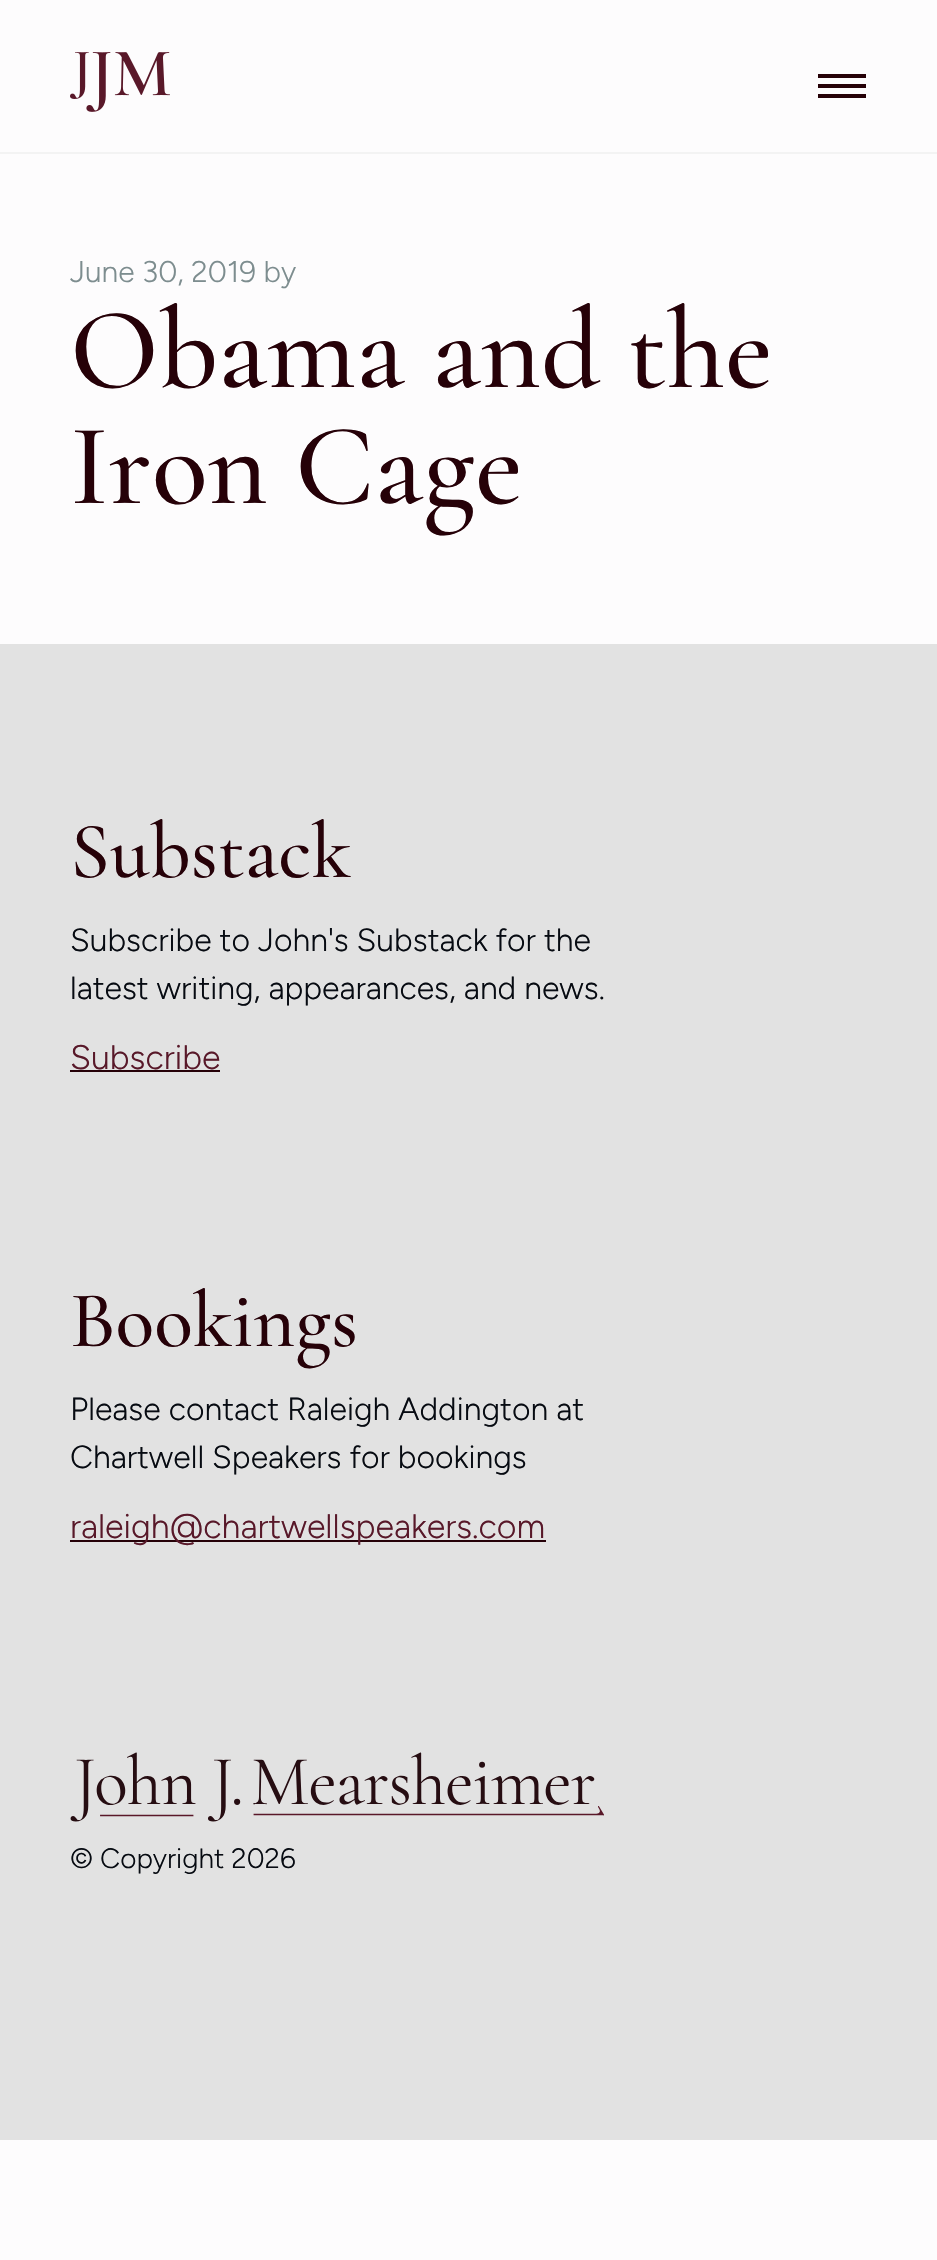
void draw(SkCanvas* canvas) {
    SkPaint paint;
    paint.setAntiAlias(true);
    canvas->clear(0xFFFDFCFD);
    paint.setColor(0xFFF3F3F3);
    canvas->drawRect(SkRect::MakeXYWH(0, 152, 937, 2), paint);
    canvas->drawImageRect(SkImages::DeferredFromEncodedData(SkData::MakeFromFileName("img1.png")), SkRect::MakeXYWH(70, 52, 100, 60), SkSamplingOptions());
    paint.setColor(0xFF260108);
    canvas->drawRect(SkRect::MakeXYWH(818, 74, 48, 4), paint);
    canvas->drawRect(SkRect::MakeXYWH(818, 84, 48, 4), paint);
    canvas->drawRect(SkRect::MakeXYWH(818, 94, 48, 4), paint);
    SkFont font1(fontMgr->matchFamilyStyle("Figtree", SkFontStyle(300, SkFontStyle::kNormal_Width, SkFontStyle::kUpright_Slant)), 30);
    font1.setSubpixel(true);
    paint.setColor(0xFF7D8D8F);
    canvas->drawString("June 30, 2019 by", 70, 282, font1, paint);
    SkFont font2(fontMgr->matchFamilyStyle("Cormorant Garamond", SkFontStyle(500, SkFontStyle::kNormal_Width, SkFontStyle::kUpright_Slant)), 116);
    font2.setSubpixel(true);
    paint.setColor(0xFF260108);
    canvas->drawString("Obama and the", 70, 387, font2, paint);
    canvas->drawString("Iron Cage", 70, 503, font2, paint);
    paint.setColor(0xFFE2E2E2);
    canvas->drawRect(SkRect::MakeXYWH(0, 644, 937, 1496), paint);
    SkFont font3(fontMgr->matchFamilyStyle("Cormorant Garamond", SkFontStyle(500, SkFontStyle::kNormal_Width, SkFontStyle::kUpright_Slant)), 80);
    font3.setSubpixel(true);
    paint.setColor(0xFF260108);
    canvas->drawString("Substack", 70, 877, font3, paint);
    SkFont font4(fontMgr->matchFamilyStyle("Figtree", SkFontStyle(300, SkFontStyle::kNormal_Width, SkFontStyle::kUpright_Slant)), 32);
    font4.setSubpixel(true);
    paint.setColor(0xFF070B12);
    canvas->drawString("Subscribe to John's Substack for the", 70, 951, font4, paint);
    canvas->drawString("latest writing, appearances, and news.", 70, 999, font4, paint);
    SkFont font5(fontMgr->matchFamilyStyle("Figtree", SkFontStyle(300, SkFontStyle::kNormal_Width, SkFontStyle::kUpright_Slant)), 34);
    font5.setSubpixel(true);
    paint.setColor(0xFF581829);
    canvas->drawString("Subscribe", 70, 1069, font5, paint);
    paint.setColor(0xFF260108);
    canvas->drawRect(SkRect::MakeXYWH(70, 1070, 150, 2), paint);
    canvas->drawString("Bookings", 70, 1346, font3, paint);
    paint.setColor(0xFF070B12);
    canvas->drawString("Please contact Raleigh Addington at", 70, 1420, font4, paint);
    canvas->drawString("Chartwell Speakers for bookings", 70, 1468, font4, paint);
    paint.setColor(0xFF260108);
    canvas->drawRect(SkRect::MakeXYWH(70, 1540, 476, 2), paint);
    paint.setColor(0xFF581829);
    canvas->drawString("raleigh@chartwellspeakers.com", 70, 1538, font5, paint);
    canvas->drawImageRect(SkImages::DeferredFromEncodedData(SkData::MakeFromFileName("img2.png")), SkRect::MakeXYWH(70, 1752, 534, 70), SkSamplingOptions());
    SkFont font6(fontMgr->matchFamilyStyle("Figtree", SkFontStyle(300, SkFontStyle::kNormal_Width, SkFontStyle::kUpright_Slant)), 28);
    font6.setSubpixel(true);
    paint.setColor(0xFF070B12);
    canvas->drawString("© Copyright 2026", 70, 1868, font6, paint);
}
